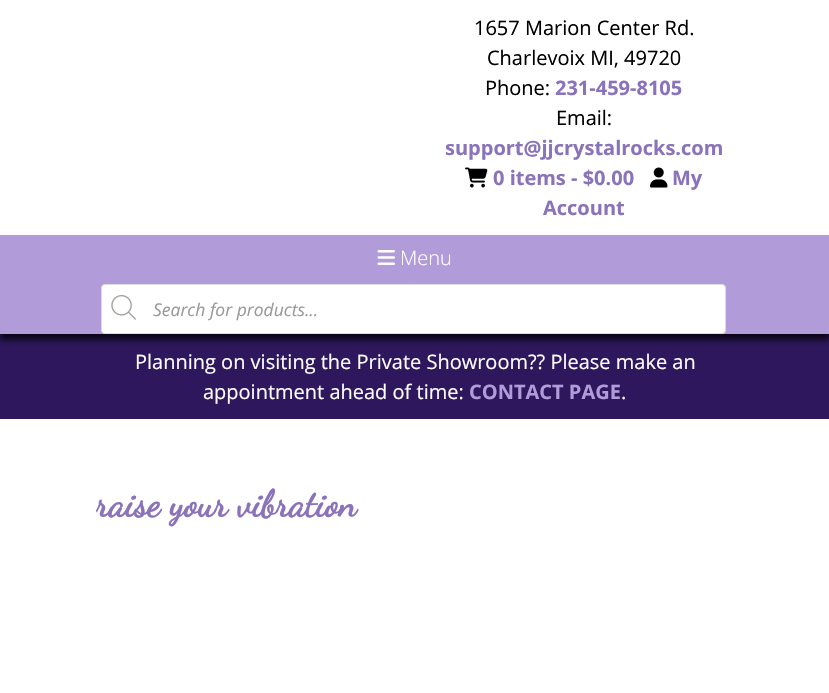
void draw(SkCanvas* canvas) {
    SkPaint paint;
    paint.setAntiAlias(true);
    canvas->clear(0xFFFFFFFF);
    SkFont font1(fontMgr->matchFamilyStyle("Open Sans", SkFontStyle::Normal()), 20);
    font1.setSubpixel(true);
    paint.setColor(0xFF000000);
    canvas->drawString("1657 Marion Center Rd.", 474, 35, font1, paint);
    canvas->drawString("Charlevoix MI, 49720", 487, 65, font1, paint);
    canvas->drawString("Phone:", 485, 95, font1, paint);
    SkFont font2(fontMgr->matchFamilyStyle("Open Sans", SkFontStyle::Bold()), 20);
    font2.setSubpixel(true);
    paint.setColor(0xFF8A73BA);
    canvas->drawString("231-459-8105", 555, 95, font2, paint);
    paint.setColor(0xFF000000);
    canvas->drawString("Email:", 556, 125, font1, paint);
    paint.setColor(0xFF8A73BA);
    canvas->drawString("support@jjcrystalrocks.com", 445, 155, font2, paint);
    canvas->drawImageRect(SkImages::DeferredFromEncodedData(SkData::MakeFromFileName("img1.png")), SkRect::MakeXYWH(465, 167, 23, 21), SkSamplingOptions());
    canvas->drawString("0 items - $0.00", 493, 185, font2, paint);
    canvas->drawImageRect(SkImages::DeferredFromEncodedData(SkData::MakeFromFileName("img2.png")), SkRect::MakeXYWH(650, 167, 18, 21), SkSamplingOptions());
    canvas->drawString("My", 672, 185, font2, paint);
    canvas->drawString("Account", 543, 215, font2, paint);
    paint.setColor(0xFF2E175C);
    canvas->drawRect(SkRect::MakeXYWH(0, 334, 829, 85), paint);
    paint.setColor(0xBF000000);
    paint.setMaskFilter(SkMaskFilter::MakeBlur(kNormal_SkBlurStyle, 3));
    canvas->drawRect(SkRect::MakeXYWH(0, 241, 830, 99), paint);
    paint.setMaskFilter(nullptr);
    paint.setColor(0xFFB19CD9);
    canvas->drawRect(SkRect::MakeXYWH(0, 235, 829, 99), paint);
    canvas->drawImageRect(SkImages::DeferredFromEncodedData(SkData::MakeFromFileName("img3.png")), SkRect::MakeXYWH(377, 250, 18, 15), SkSamplingOptions());
    SkFont font3(fontMgr->matchFamilyStyle("Open Sans", SkFontStyle(300, SkFontStyle::kNormal_Width, SkFontStyle::kUpright_Slant)), 20);
    font3.setSubpixel(true);
    paint.setColor(0xFFFFFFFF);
    canvas->drawString("Menu", 400, 265, font3, paint);
    canvas->drawRoundRect(SkRect::MakeXYWH(101.5f, 284.5f, 624, 49), 3.5f, 3.5f, paint);
    paint.setStyle(SkPaint::kStroke_Style);
    paint.setStrokeWidth(1);
    paint.setColor(0xFFDDDDDD);
    canvas->drawRoundRect(SkRect::MakeXYWH(101.5f, 284.5f, 624, 49), 3.5f, 3.5f, paint);
    canvas->drawImageRect(SkImages::DeferredFromEncodedData(SkData::MakeFromFileName("img4.png")), SkRect::MakeXYWH(111, 295, 25, 25), SkSamplingOptions());
    SkFont font4(fontMgr->matchFamilyStyle("Open Sans", SkFontStyle::Italic()), 17.5f);
    font4.setSubpixel(true);
    paint.setStyle(SkPaint::kFill_Style);
    paint.setColor(0xFF999999);
    canvas->drawString("Search for products...", 153, 316, font4, paint);
    paint.setColor(0xFFFFFFFF);
    canvas->drawString("Planning on visiting the Private Showroom?\077 Please make an", 135, 369, font1, paint);
    canvas->drawString("appointment ahead of time:", 203, 399, font1, paint);
    paint.setColor(0xFFB19CD9);
    canvas->drawString("CONTACT PAGE", 469, 399, font2, paint);
    paint.setColor(0xFFFFFFFF);
    canvas->drawString(".", 621, 399, font1, paint);
    SkFont font5(fontMgr->matchFamilyStyle("Dancing Script", SkFontStyle::Bold()), 37.5f);
    font5.setSubpixel(true);
    paint.setColor(0xFF8A73BA);
    canvas->drawString("raise your vibration", 96, 516, font5, paint);
}
